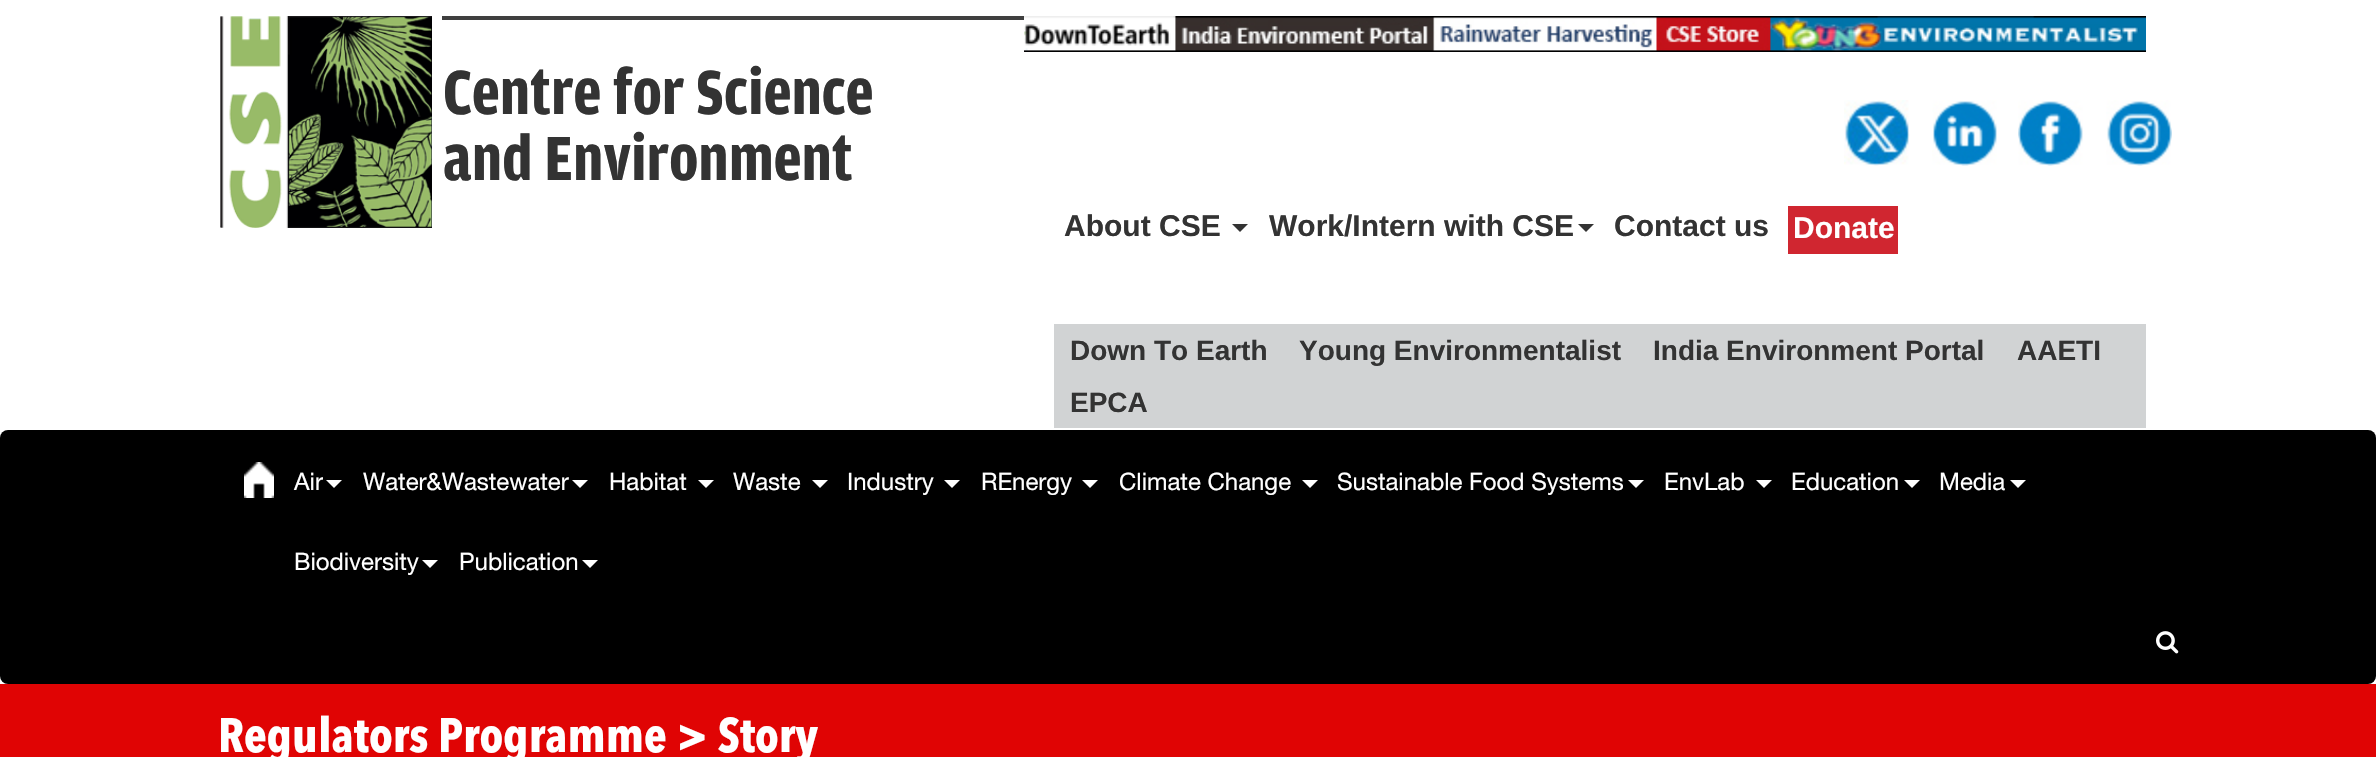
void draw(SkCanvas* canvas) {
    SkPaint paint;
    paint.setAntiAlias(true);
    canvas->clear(0xFFFFFFFF);
    canvas->drawImageRect(SkImages::DeferredFromEncodedData(SkData::MakeFromFileName("img1.png")), SkRect::MakeXYWH(220, 16, 212, 212), SkSamplingOptions());
    paint.setColor(0xFF3F3F3F);
    canvas->drawRect(SkRect::MakeXYWH(442, 16, 582, 4), paint);
    SkFont font1(fontMgr->matchFamilyStyle("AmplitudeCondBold", SkFontStyle::Bold()), 66);
    font1.setSubpixel(true);
    paint.setColor(0xFF333333);
    canvas->drawString("Centre for Science", 443, 114, font1, paint);
    canvas->drawString("and Environment", 443, 180, font1, paint);
    canvas->drawImageRect(SkImages::DeferredFromEncodedData(SkData::MakeFromFileName("img2.png")), SkRect::MakeXYWH(1024, 16, 1122, 36), SkSamplingOptions());
    canvas->drawImageRect(SkImages::DeferredFromEncodedData(SkData::MakeFromFileName("img3.png")), SkRect::MakeXYWH(1844, 100, 66, 66), SkSamplingOptions());
    canvas->drawImageRect(SkImages::DeferredFromEncodedData(SkData::MakeFromFileName("img4.png")), SkRect::MakeXYWH(1932, 100, 65, 66), SkSamplingOptions());
    canvas->drawImageRect(SkImages::DeferredFromEncodedData(SkData::MakeFromFileName("img5.png")), SkRect::MakeXYWH(2018, 100, 65, 66), SkSamplingOptions());
    canvas->drawImageRect(SkImages::DeferredFromEncodedData(SkData::MakeFromFileName("img6.png")), SkRect::MakeXYWH(2106, 100, 66, 66), SkSamplingOptions());
    SkFont font2(fontMgr->matchFamilyStyle("Liberation Sans", SkFontStyle::Bold()), 30);
    font2.setSubpixel(true);
    canvas->drawString("About CSE", 1064, 236, font2, paint);
    canvas->drawPath(SkPathBuilder().moveTo(1232, 224).lineTo(1248, 224).lineTo(1240, 232).close().detach(), paint);
    canvas->drawString("Work/Intern with CSE", 1269, 236, font2, paint);
    canvas->drawPath(SkPathBuilder().moveTo(1578, 224).lineTo(1594, 224).lineTo(1586, 232).close().detach(), paint);
    canvas->drawString("Contact us", 1614, 236, font2, paint);
    paint.setColor(0xFFD02630);
    canvas->drawRect(SkRect::MakeXYWH(1788, 206, 110, 48), paint);
    paint.setColor(0xFFFFFFFF);
    canvas->drawString("Donate", 1793, 238, font2, paint);
    paint.setColor(0xFFD1D3D4);
    canvas->drawRect(SkRect::MakeXYWH(1054, 324, 1092, 104), paint);
    SkFont font3(fontMgr->matchFamilyStyle("Liberation Sans", SkFontStyle::Bold()), 28);
    font3.setSubpixel(true);
    paint.setColor(0xFF333333);
    canvas->drawString("Down To Earth", 1070, 360, font3, paint);
    canvas->drawString("Young Environmentalist", 1299, 360, font3, paint);
    canvas->drawString("India Environment Portal", 1653, 360, font3, paint);
    canvas->drawString("AAETI", 2017, 360, font3, paint);
    canvas->drawString("EPCA", 1070, 412, font3, paint);
    paint.setColor(0xFF000000);
    canvas->drawRoundRect(SkRect::MakeXYWH(0, 430, 2376, 254), 8, 8, paint);
    canvas->drawImageRect(SkImages::DeferredFromEncodedData(SkData::MakeFromFileName("img7.png")), SkRect::MakeXYWH(244, 462, 30, 36), SkSamplingOptions());
    SkFont font4(fontMgr->matchFamilyStyle("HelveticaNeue", SkFontStyle::Normal()), 24);
    font4.setSubpixel(true);
    paint.setColor(0xFFFFFFFF);
    canvas->drawString("Air", 294, 490, font4, paint);
    canvas->drawPath(SkPathBuilder().moveTo(326, 480).lineTo(342, 480).lineTo(334, 488).close().detach(), paint);
    canvas->drawString("Water&Wastewater", 363, 490, font4, paint);
    canvas->drawPath(SkPathBuilder().moveTo(572, 480).lineTo(588, 480).lineTo(580, 488).close().detach(), paint);
    canvas->drawString("Habitat", 609, 490, font4, paint);
    canvas->drawPath(SkPathBuilder().moveTo(698, 480).lineTo(714, 480).lineTo(706, 488).close().detach(), paint);
    canvas->drawString("Waste", 733, 490, font4, paint);
    canvas->drawPath(SkPathBuilder().moveTo(812, 480).lineTo(828, 480).lineTo(820, 488).close().detach(), paint);
    canvas->drawString("Industry", 847, 490, font4, paint);
    canvas->drawPath(SkPathBuilder().moveTo(944, 480).lineTo(960, 480).lineTo(952, 488).close().detach(), paint);
    canvas->drawString("REnergy", 981, 490, font4, paint);
    canvas->drawPath(SkPathBuilder().moveTo(1082, 480).lineTo(1098, 480).lineTo(1090, 488).close().detach(), paint);
    canvas->drawString("Climate Change", 1119, 490, font4, paint);
    canvas->drawPath(SkPathBuilder().moveTo(1302, 480).lineTo(1318, 480).lineTo(1310, 488).close().detach(), paint);
    canvas->drawString("Sustainable Food Systems", 1337, 490, font4, paint);
    canvas->drawPath(SkPathBuilder().moveTo(1628, 480).lineTo(1644, 480).lineTo(1636, 488).close().detach(), paint);
    canvas->drawString("EnvLab", 1664, 490, font4, paint);
    canvas->drawPath(SkPathBuilder().moveTo(1756, 480).lineTo(1772, 480).lineTo(1764, 488).close().detach(), paint);
    canvas->drawString("Education", 1791, 490, font4, paint);
    canvas->drawPath(SkPathBuilder().moveTo(1904, 480).lineTo(1920, 480).lineTo(1912, 488).close().detach(), paint);
    canvas->drawString("Media", 1939, 490, font4, paint);
    canvas->drawPath(SkPathBuilder().moveTo(2010, 480).lineTo(2026, 480).lineTo(2018, 488).close().detach(), paint);
    canvas->drawString("Biodiversity", 294, 570, font4, paint);
    canvas->drawPath(SkPathBuilder().moveTo(422, 560).lineTo(438, 560).lineTo(430, 568).close().detach(), paint);
    canvas->drawString("Publication", 459, 570, font4, paint);
    canvas->drawPath(SkPathBuilder().moveTo(582, 560).lineTo(598, 560).lineTo(590, 568).close().detach(), paint);
    canvas->drawImageRect(SkImages::DeferredFromEncodedData(SkData::MakeFromFileName("img8.png")), SkRect::MakeXYWH(2156, 631, 23, 23), SkSamplingOptions());
    paint.setColor(0xFFE00404);
    canvas->drawRect(SkRect::MakeXYWH(0, 684, 2376, 73), paint);
    SkFont font5(fontMgr->matchFamilyStyle("Avenir Next", SkFontStyle::Bold()), 48);
    font5.setSubpixel(true);
    paint.setColor(0xFFFFFFFF);
    canvas->drawString("Regulators Programme > Story", 218, 752, font5, paint);
}
